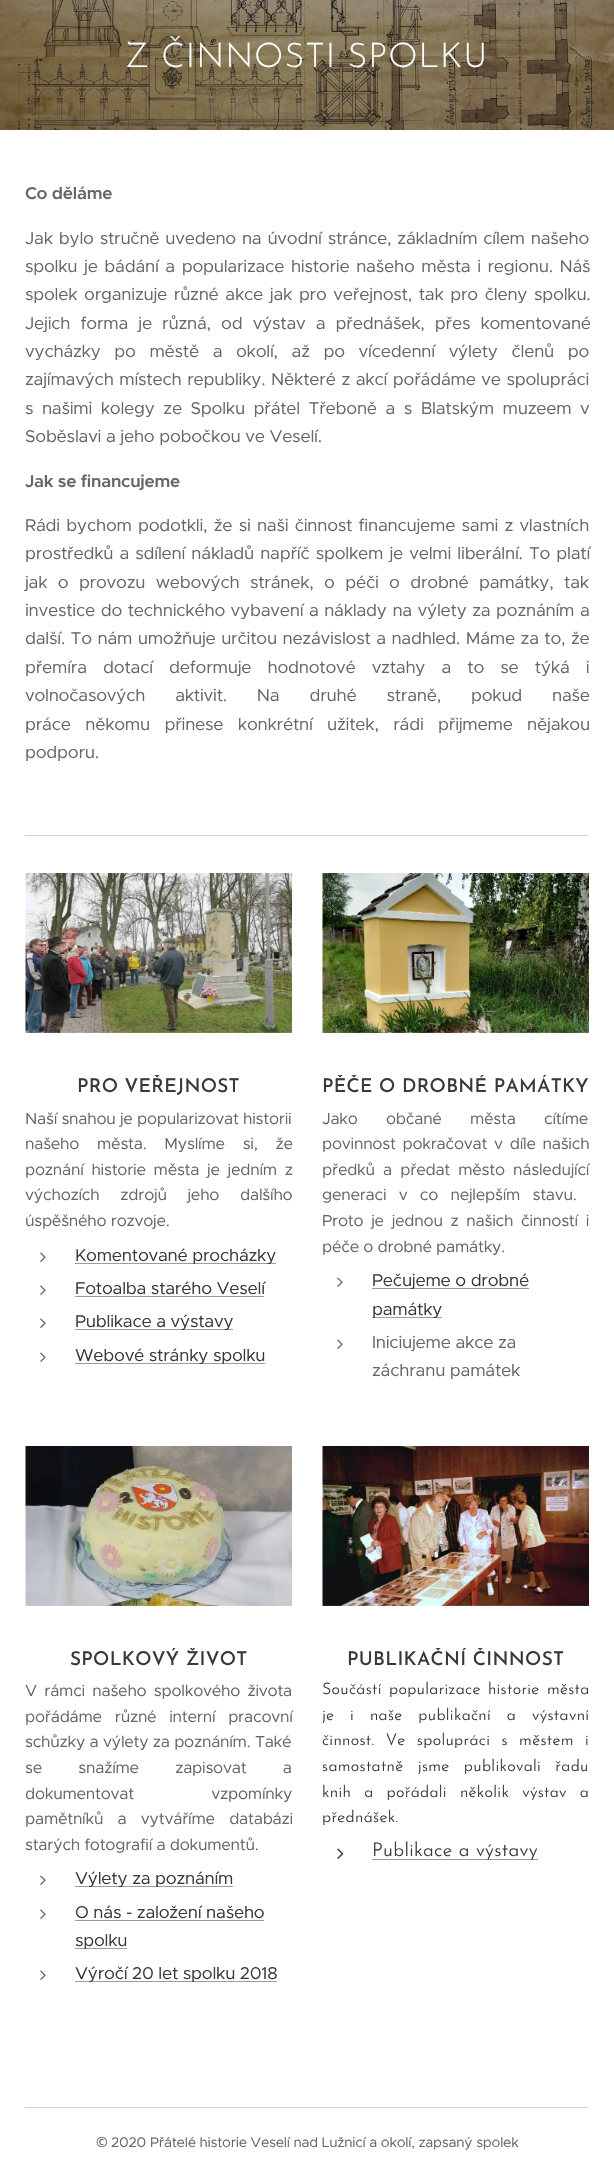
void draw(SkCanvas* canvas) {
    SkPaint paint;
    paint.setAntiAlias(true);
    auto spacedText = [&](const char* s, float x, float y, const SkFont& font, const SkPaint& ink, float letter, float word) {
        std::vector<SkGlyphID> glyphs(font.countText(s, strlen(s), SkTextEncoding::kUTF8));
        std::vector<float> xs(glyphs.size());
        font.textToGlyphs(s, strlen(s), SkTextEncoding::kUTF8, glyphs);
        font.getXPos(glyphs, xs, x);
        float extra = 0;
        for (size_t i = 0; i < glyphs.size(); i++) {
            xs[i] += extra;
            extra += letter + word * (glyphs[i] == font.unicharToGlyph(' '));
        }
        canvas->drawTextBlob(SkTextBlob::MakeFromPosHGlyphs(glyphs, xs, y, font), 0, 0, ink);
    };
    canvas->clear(0xFFFFFFFF);
    canvas->drawImageRect(SkImages::DeferredFromEncodedData(SkData::MakeFromFileName("img1.png")), SkRect::MakeXYWH(0, 0, 614, 130), SkSamplingOptions());
    SkFont font1(fontMgr->matchFamilyStyle("Josefin Sans", SkFontStyle(300, SkFontStyle::kNormal_Width, SkFontStyle::kUpright_Slant)), 34);
    font1.setSubpixel(true);
    paint.setColor(0xFFFFFFFF);
    spacedText("Z ČINNOSTI SPOLKU", 125, 67, font1, paint, 1, 0);
    SkFont font2(fontMgr->matchFamilyStyle("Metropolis", SkFontStyle(600, SkFontStyle::kNormal_Width, SkFontStyle::kUpright_Slant)), 17.2f);
    font2.setSubpixel(true);
    paint.setColor(0xFF666666);
    spacedText("Co děláme", 25, 199, font2, paint, -0.25f, 0);
    SkFont font3(fontMgr->matchFamilyStyle("Metropolis", SkFontStyle::Normal()), 17.2f);
    font3.setSubpixel(true);
    spacedText("Jak bylo stručně uvedeno na úvodní stránce, základním cílem našeho", 25, 244, font3, paint, -0.25f, 1.25f);
    spacedText("spolku je bádání a popularizace historie našeho města i regionu. Náš", 25, 272, font3, paint, -0.25f, 2);
    spacedText("spolek organizuje různé akce jak pro veřejnost, tak pro členy spolku.", 25, 300, font3, paint, -0.25f, 2);
    spacedText("Jejich forma je různá, od výstav a přednášek, přes komentované", 25, 329, font3, paint, -0.25f, 5.5f);
    spacedText("vycházky po městě a okolí, až po vícedenní výlety členů po", 25, 357, font3, paint, -0.25f, 9);
    spacedText("zajímavých místech republiky. Některé z akcí pořádáme ve spolupráci", 25, 385, font3, paint, -0.25f, 1);
    spacedText("s našimi kolegy ze Spolku přátel Třeboně a s Blatským muzeem v", 25, 414, font3, paint, -0.25f, 3.9f);
    spacedText("Soběslavi a jeho pobočkou ve Veselí.", 25, 442, font3, paint, -0.25f, 0);
    spacedText("Jak se financujeme", 25, 487, font2, paint, -0.25f, 0);
    spacedText("Rádi bychom podotkli, že si naši činnost financujeme sami z vlastních", 25, 531, font3, paint, -0.25f, 1.6f);
    spacedText("prostředků a sdílení nákladů napříč spolkem je velmi liberální. To platí", 25, 559, font3, paint, -0.25f, 1.5f);
    spacedText("jak o provozu webových stránek, o péči o drobné památky, tak", 25, 588, font3, paint, -0.25f, 5.75f);
    spacedText("investice do technického vybavení a náklady na výlety za poznáním a", 25, 616, font3, paint, -0.25f, 0.9f);
    spacedText("další. To nám umožňuje určitou nezávislost a nadhled. Máme za to, že", 25, 644, font3, paint, -0.25f, 0.9f);
    spacedText("přemíra dotací deformuje hodnotové vztahy a to se týká i", 25, 673, font3, paint, -0.25f, 11.5f);
    spacedText("volnočasových aktivit. Na druhé straně, pokud naše", 25, 701, font3, paint, -0.25f, 25.25f);
    spacedText("práce někomu přinese konkrétní užitek, rádi přijmeme nějakou", 25, 730, font3, paint, -0.25f, 9.75f);
    spacedText("podporu.", 25, 758, font3, paint, -0.25f, 0);
    paint.setColor(0xFFD4D4D4);
    canvas->drawRect(SkRect::MakeXYWH(25, 835, 564, 1), paint);
    canvas->drawImageRect(SkImages::DeferredFromEncodedData(SkData::MakeFromFileName("img2.png")), SkRect::MakeXYWH(25, 873, 267, 160), SkSamplingOptions());
    canvas->save();
    canvas->clipRect(SkRect::MakeXYWH(25, 1075, 267, 31));
    SkFont font4(fontMgr->matchFamilyStyle("Josefin Sans", SkFontStyle(500, SkFontStyle::kNormal_Width, SkFontStyle::kUpright_Slant)), 19);
    font4.setSubpixel(true);
    paint.setColor(0xFF393939);
    spacedText("PRO VEŘEJNOST", 77, 1092, font4, paint, 0.3f, 0);
    canvas->restore();
    SkFont font5(fontMgr->matchFamilyStyle("Metropolis", SkFontStyle::Normal()), 16);
    font5.setSubpixel(true);
    paint.setColor(0xFF666666);
    spacedText("Naší snahou je popularizovat historii", 25, 1124, font5, paint, -0.25f, 0);
    spacedText("našeho města. Myslíme si, že", 25, 1149, font5, paint, -0.25f, 13.5f);
    spacedText("poznání historie města je jedním z", 25, 1175, font5, paint, -0.25f, 3.5f);
    spacedText("výchozích zdrojů jeho dalšího", 25, 1200, font5, paint, -0.25f, 16.5f);
    spacedText("úspěšného rozvoje.", 25, 1226, font5, paint, -0.25f, 0);
    canvas->drawImageRect(SkImages::DeferredFromEncodedData(SkData::MakeFromFileName("img3.png")), SkRect::MakeXYWH(40, 1252, 6, 10), SkSamplingOptions());
    paint.setColor(0xFF9C9C9C);
    canvas->drawRect(SkRect::MakeXYWH(75, 1263, 201, 1), paint);
    paint.setColor(0xFF393939);
    spacedText("Komentované procházky", 75, 1261, font3, paint, -0.25f, 0);
    canvas->drawImageRect(SkImages::DeferredFromEncodedData(SkData::MakeFromFileName("img3.png")), SkRect::MakeXYWH(40, 1285, 6, 10), SkSamplingOptions());
    spacedText("Fotoalba starého Veselí", 75, 1294, font3, paint, -0.25f, 0);
    paint.setColor(0xFF9C9C9C);
    canvas->drawRect(SkRect::MakeXYWH(75, 1296, 189, 1), paint);
    canvas->drawImageRect(SkImages::DeferredFromEncodedData(SkData::MakeFromFileName("img3.png")), SkRect::MakeXYWH(40, 1318, 6, 10), SkSamplingOptions());
    canvas->drawRect(SkRect::MakeXYWH(75, 1329, 158, 1), paint);
    paint.setColor(0xFF393939);
    spacedText("Publikace a výstavy", 75, 1327, font3, paint, -0.25f, 0);
    canvas->drawImageRect(SkImages::DeferredFromEncodedData(SkData::MakeFromFileName("img3.png")), SkRect::MakeXYWH(40, 1352, 6, 10), SkSamplingOptions());
    paint.setColor(0xFF9C9C9C);
    canvas->drawRect(SkRect::MakeXYWH(75, 1363, 190, 1), paint);
    paint.setColor(0xFF393939);
    spacedText("Webové stránky spolku", 75, 1361, font3, paint, -0.25f, 0);
    canvas->drawImageRect(SkImages::DeferredFromEncodedData(SkData::MakeFromFileName("img4.png")), SkRect::MakeXYWH(322, 873, 267, 160), SkSamplingOptions());
    canvas->save();
    canvas->clipRect(SkRect::MakeXYWH(322, 1075, 267, 31));
    spacedText("PĚČE O DROBNÉ PAMÁTKY", 322, 1092, font4, paint, 0.3f, 0);
    canvas->restore();
    paint.setColor(0xFF666666);
    spacedText("Jako občané města cítíme", 322, 1124, font5, paint, -0.25f, 24);
    spacedText("povinnost pokračovat v díle našich", 322, 1149, font5, paint, -0.25f, 2.5f);
    spacedText("předků a předat město následující", 322, 1175, font5, paint, -0.25f, 3.9f);
    spacedText("generaci v co nejlepším stavu.", 322, 1200, font5, paint, -0.25f, 8);
    spacedText("Proto je jednou z našich činností i", 322, 1226, font5, paint, -0.25f, 3.5f);
    spacedText("péče o drobné památky.", 322, 1252, font5, paint, -0.25f, 0);
    canvas->drawImageRect(SkImages::DeferredFromEncodedData(SkData::MakeFromFileName("img3.png")), SkRect::MakeXYWH(337, 1277, 6, 10), SkSamplingOptions());
    paint.setColor(0xFF9C9C9C);
    canvas->drawRect(SkRect::MakeXYWH(372, 1288, 157, 1), paint);
    paint.setColor(0xFF393939);
    spacedText("Pečujeme o drobné", 372, 1286, font3, paint, -0.25f, 0);
    paint.setColor(0xFF9C9C9C);
    canvas->drawRect(SkRect::MakeXYWH(372, 1317, 70, 1), paint);
    paint.setColor(0xFF393939);
    spacedText("památky", 372, 1315, font3, paint, -0.25f, 0);
    canvas->drawImageRect(SkImages::DeferredFromEncodedData(SkData::MakeFromFileName("img3.png")), SkRect::MakeXYWH(337, 1339, 6, 10), SkSamplingOptions());
    paint.setColor(0xFF666666);
    spacedText("Iniciujeme akce za", 372, 1348, font3, paint, -0.25f, 0);
    spacedText("záchranu památek", 372, 1376, font3, paint, -0.25f, 0);
    canvas->drawImageRect(SkImages::DeferredFromEncodedData(SkData::MakeFromFileName("img5.png")), SkRect::MakeXYWH(25, 1446, 267, 160), SkSamplingOptions());
    canvas->save();
    canvas->clipRect(SkRect::MakeXYWH(25, 1648, 267, 30));
    paint.setColor(0xFF393939);
    spacedText("SPOLKOVÝ ŽIVOT", 70, 1665, font4, paint, 0.3f, 0);
    canvas->restore();
    paint.setColor(0xFF666666);
    spacedText("V rámci našeho spolkového života", 25, 1696, font5, paint, -0.25f, 3);
    spacedText("pořádáme různé interní pracovní", 25, 1722, font5, paint, -0.25f, 8.5f);
    spacedText("schůzky a výlety za poznáním. Také", 25, 1747, font5, paint, -0.25f, 0);
    spacedText("se snažíme zapisovat a", 25, 1773, font5, paint, -0.25f, 32);
    spacedText("dokumentovat vzpomínky", 25, 1799, font5, paint, -0.25f, 73);
    spacedText("pamětníků a vytváříme databázi", 25, 1824, font5, paint, -0.25f, 10);
    spacedText("starých fotografií a dokumentů.", 25, 1850, font5, paint, -0.25f, 0);
    canvas->drawImageRect(SkImages::DeferredFromEncodedData(SkData::MakeFromFileName("img3.png")), SkRect::MakeXYWH(40, 1875, 6, 10), SkSamplingOptions());
    paint.setColor(0xFF9C9C9C);
    canvas->drawRect(SkRect::MakeXYWH(75, 1886, 158, 1), paint);
    paint.setColor(0xFF393939);
    spacedText("Výlety za poznáním", 75, 1884, font3, paint, -0.25f, 0);
    canvas->drawImageRect(SkImages::DeferredFromEncodedData(SkData::MakeFromFileName("img3.png")), SkRect::MakeXYWH(40, 1909, 6, 10), SkSamplingOptions());
    spacedText("O nás - založení našeho", 75, 1918, font3, paint, -0.25f, 0);
    paint.setColor(0xFF9C9C9C);
    canvas->drawRect(SkRect::MakeXYWH(75, 1920, 189, 1), paint);
    canvas->drawRect(SkRect::MakeXYWH(75, 1948, 52, 1), paint);
    paint.setColor(0xFF393939);
    spacedText("spolku", 75, 1946, font3, paint, -0.25f, 0);
    canvas->drawImageRect(SkImages::DeferredFromEncodedData(SkData::MakeFromFileName("img3.png")), SkRect::MakeXYWH(40, 1970, 6, 10), SkSamplingOptions());
    paint.setColor(0xFF9C9C9C);
    canvas->drawRect(SkRect::MakeXYWH(75, 1981, 202, 1), paint);
    paint.setColor(0xFF393939);
    spacedText("Výročí 20 let spolku 2018", 75, 1979, font3, paint, -0.25f, 0);
    canvas->drawImageRect(SkImages::DeferredFromEncodedData(SkData::MakeFromFileName("img6.png")), SkRect::MakeXYWH(322, 1446, 267, 160), SkSamplingOptions());
    canvas->save();
    canvas->clipRect(SkRect::MakeXYWH(322, 1648, 267, 30));
    spacedText("PUBLIKAČNÍ ČINNOST", 347, 1665, font4, paint, 0.3f, 0);
    canvas->restore();
    SkFont font6(fontMgr->matchFamilyStyle("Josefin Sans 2", SkFontStyle(300, SkFontStyle::kNormal_Width, SkFontStyle::kUpright_Slant)), 16);
    font6.setSubpixel(true);
    spacedText("Součástí popularizace historie města", 322, 1694, font6, paint, 0.3f, 2);
    spacedText("je i naše publikační a výstavní", 322, 1720, font6, paint, 0.3f, 10.5f);
    spacedText("činnost. Ve spolupráci s městem i", 322, 1745, font6, paint, 0.3f, 6);
    spacedText("samostatně jsme publikovali řadu", 322, 1771, font6, paint, 0.3f, 9);
    spacedText("knih a pořádali několik výstav a", 322, 1797, font6, paint, 0.3f, 7.75f);
    spacedText("přednášek.", 322, 1822, font6, paint, 0.3f, 0);
    canvas->drawImageRect(SkImages::DeferredFromEncodedData(SkData::MakeFromFileName("img7.png")), SkRect::MakeXYWH(337, 1848, 7, 11), SkSamplingOptions());
    paint.setColor(0xFF9C9C9C);
    canvas->drawRect(SkRect::MakeXYWH(372, 1859, 166, 1), paint);
    SkFont font7(fontMgr->matchFamilyStyle("Josefin Sans 2", SkFontStyle(300, SkFontStyle::kNormal_Width, SkFontStyle::kUpright_Slant)), 19);
    font7.setSubpixel(true);
    paint.setColor(0xFF393939);
    spacedText("Publikace a výstavy", 372, 1856, font7, paint, 0.3f, 0);
    paint.setColor(0xFFD4D4D4);
    canvas->drawRect(SkRect::MakeXYWH(25, 2107, 564, 1), paint);
    SkFont font8(fontMgr->matchFamilyStyle("Noto Sans", SkFontStyle::Normal()), 14);
    font8.setSubpixel(true);
    paint.setColor(0xFF666666);
    spacedText("©", 96, 2147, font8, paint, -0.25f, 0);
    SkFont font9(fontMgr->matchFamilyStyle("Metropolis", SkFontStyle::Normal()), 14);
    font9.setSubpixel(true);
    spacedText("2020", 111, 2147, font9, paint, -0.25f, 0);
    spacedText("Přátelé historie Veselí nad Lužnicí a okolí, zapsaný spolek", 150, 2147, font9, paint, -0.25f, 0);
}
